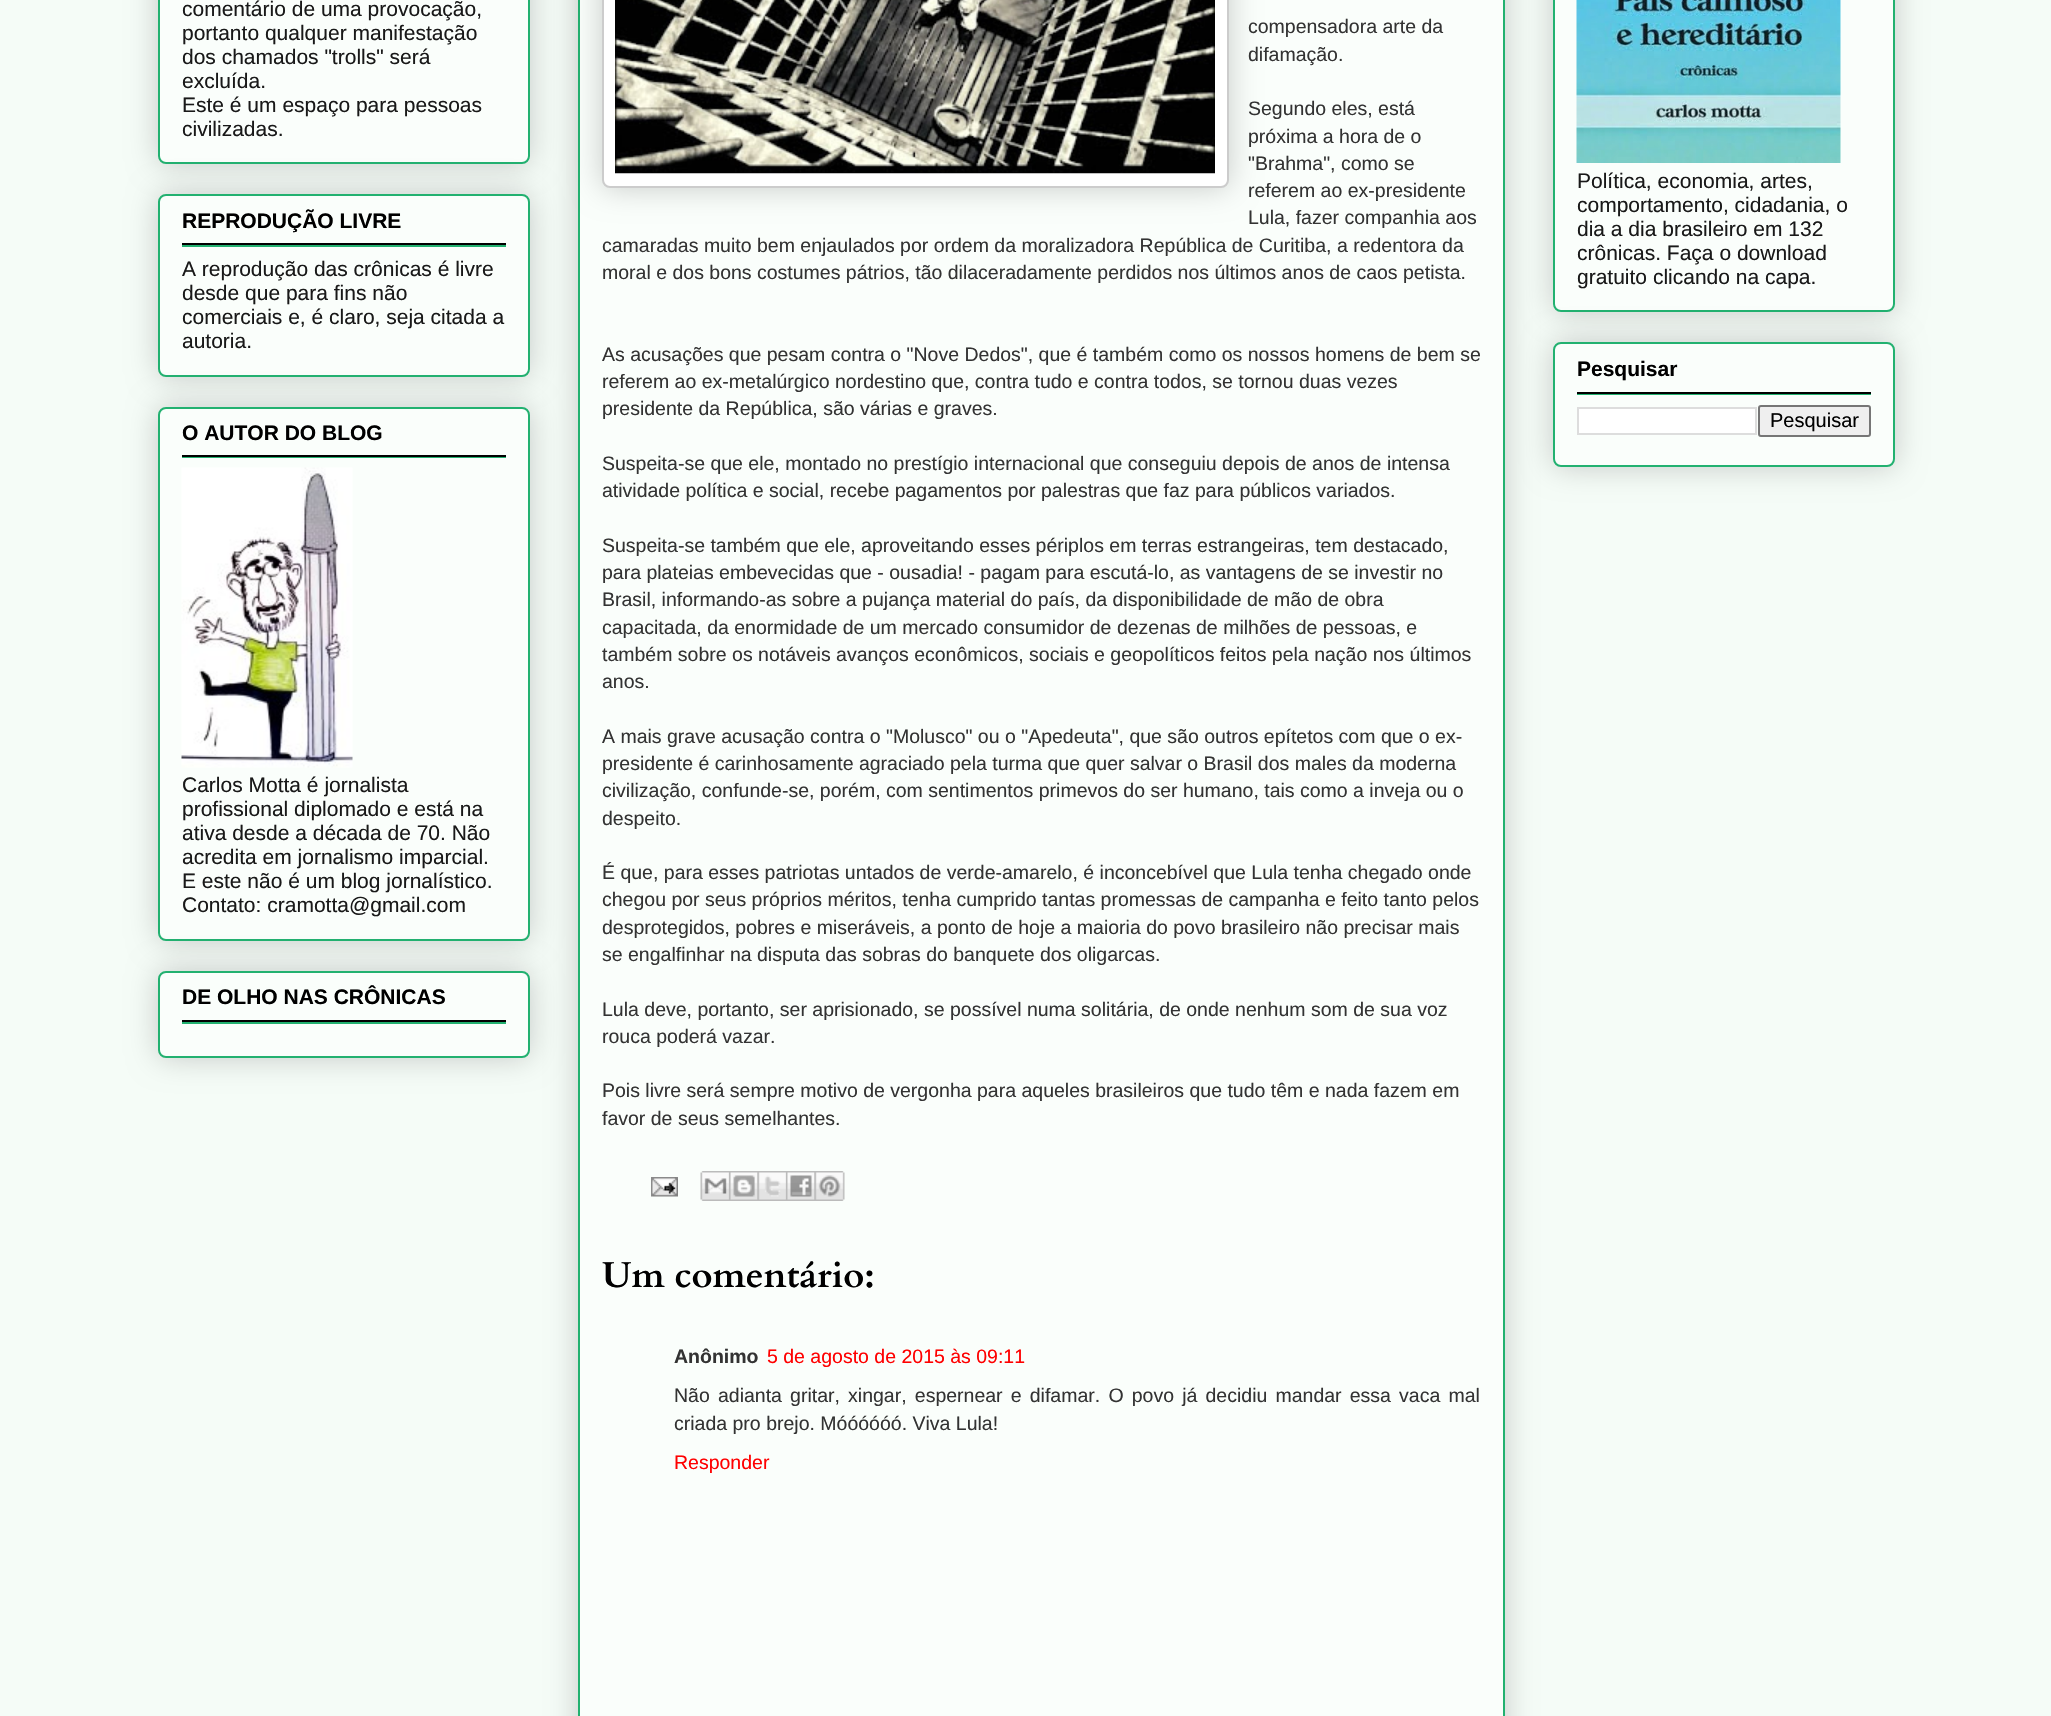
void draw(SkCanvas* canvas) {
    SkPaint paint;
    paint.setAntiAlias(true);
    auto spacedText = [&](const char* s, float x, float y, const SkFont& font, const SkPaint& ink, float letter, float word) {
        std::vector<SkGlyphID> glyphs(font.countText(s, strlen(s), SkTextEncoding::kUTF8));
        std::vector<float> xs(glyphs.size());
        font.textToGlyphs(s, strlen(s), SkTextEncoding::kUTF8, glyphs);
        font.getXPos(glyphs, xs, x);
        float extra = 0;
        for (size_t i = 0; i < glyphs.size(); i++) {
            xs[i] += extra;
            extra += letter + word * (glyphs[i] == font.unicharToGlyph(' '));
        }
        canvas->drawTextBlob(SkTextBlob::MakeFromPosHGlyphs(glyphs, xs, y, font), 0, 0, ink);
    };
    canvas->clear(0xFFF5FCF7);
    paint.setColor(0x33000000);
    paint.setMaskFilter(SkMaskFilter::MakeBlur(kNormal_SkBlurStyle, 15));
    canvas->drawRoundRect(SkRect::MakeXYWH(158, -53, 372, 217), 8, 8, paint);
    paint.setMaskFilter(nullptr);
    paint.setColor(0xFFFAFEFB);
    canvas->drawRoundRect(SkRect::MakeXYWH(159, -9, 370, 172), 7, 7, paint);
    paint.setStyle(SkPaint::kStroke_Style);
    paint.setStrokeWidth(2);
    paint.setColor(0xFF22B170);
    canvas->drawRoundRect(SkRect::MakeXYWH(159, -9, 370, 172), 7, 7, paint);
    SkFont font1(fontMgr->matchFamilyStyle("Liberation Sans", SkFontStyle::Normal()), 21);
    font1.setSubpixel(true);
    paint.setStyle(SkPaint::kFill_Style);
    paint.setColor(0xFF191919);
    canvas->drawString("comentário de uma provocação,", 182, 16, font1, paint);
    canvas->drawString("portanto qualquer manifestação", 182, 40, font1, paint);
    canvas->drawString("dos chamados \"trolls\" será", 182, 64, font1, paint);
    canvas->drawString("excluída.", 182, 88, font1, paint);
    canvas->drawString("Este é um espaço para pessoas", 182, 112, font1, paint);
    canvas->drawString("civilizadas.", 182, 136, font1, paint);
    paint.setColor(0x33000000);
    paint.setMaskFilter(SkMaskFilter::MakeBlur(kNormal_SkBlurStyle, 15));
    canvas->drawRoundRect(SkRect::MakeXYWH(158, 194, 372, 183), 8, 8, paint);
    paint.setMaskFilter(nullptr);
    paint.setColor(0xFFFAFEFB);
    canvas->drawRoundRect(SkRect::MakeXYWH(159, 195, 370, 181), 7, 7, paint);
    paint.setStyle(SkPaint::kStroke_Style);
    paint.setColor(0xFF22B170);
    canvas->drawRoundRect(SkRect::MakeXYWH(159, 195, 370, 181), 7, 7, paint);
    paint.setStyle(SkPaint::kFill_Style);
    paint.setColor(0xFF000000);
    canvas->drawRect(SkRect::MakeXYWH(182, 243, 324, 2), paint);
    SkFont font2(fontMgr->matchFamilyStyle("Liberation Sans", SkFontStyle::Bold()), 21);
    font2.setSubpixel(true);
    canvas->drawString("REPRODUÇÃO LIVRE", 182, 228, font2, paint);
    paint.setColor(0xFF22B170);
    canvas->drawRect(SkRect::MakeXYWH(182, 245, 324, 2), paint);
    paint.setColor(0xFF191919);
    canvas->drawString("A reprodução das crônicas é livre", 182, 276, font1, paint);
    canvas->drawString("desde que para fins não", 182, 300, font1, paint);
    canvas->drawString("comerciais e, é claro, seja citada a", 182, 324, font1, paint);
    canvas->drawString("autoria.", 182, 348, font1, paint);
    paint.setColor(0x33000000);
    paint.setMaskFilter(SkMaskFilter::MakeBlur(kNormal_SkBlurStyle, 15));
    canvas->drawRoundRect(SkRect::MakeXYWH(158, 407, 372, 534), 8, 8, paint);
    paint.setMaskFilter(nullptr);
    paint.setColor(0xFFFAFEFB);
    canvas->drawRoundRect(SkRect::MakeXYWH(159, 408, 370, 532), 7, 7, paint);
    paint.setStyle(SkPaint::kStroke_Style);
    paint.setColor(0xFF22B170);
    canvas->drawRoundRect(SkRect::MakeXYWH(159, 408, 370, 532), 7, 7, paint);
    paint.setStyle(SkPaint::kFill_Style);
    paint.setColor(0xFF000000);
    canvas->drawRect(SkRect::MakeXYWH(182, 455, 324, 2), paint);
    canvas->drawString("O AUTOR DO BLOG", 182, 440, font2, paint);
    paint.setColor(0xFF22B170);
    canvas->drawRect(SkRect::MakeXYWH(182, 457, 324, 1), paint);
    canvas->drawImageRect(SkImages::DeferredFromEncodedData(SkData::MakeFromFileName("img1.png")), SkRect::MakeXYWH(181, 467, 172, 301), SkSamplingOptions());
    paint.setColor(0xFF191919);
    canvas->drawString("Carlos Motta é jornalista", 182, 792, font1, paint);
    canvas->drawString("profissional diplomado e está na", 182, 816, font1, paint);
    canvas->drawString("ativa desde a década de 70. Não", 182, 840, font1, paint);
    canvas->drawString("acredita em jornalismo imparcial.", 182, 864, font1, paint);
    canvas->drawString("E este não é um blog jornalístico.", 182, 888, font1, paint);
    canvas->drawString("Contato: cramotta@gmail.com", 182, 912, font1, paint);
    paint.setColor(0x33000000);
    paint.setMaskFilter(SkMaskFilter::MakeBlur(kNormal_SkBlurStyle, 15));
    canvas->drawRoundRect(SkRect::MakeXYWH(158, 971, 372, 87), 8, 8, paint);
    paint.setMaskFilter(nullptr);
    paint.setColor(0xFFFAFEFB);
    canvas->drawRoundRect(SkRect::MakeXYWH(159, 972, 370, 85), 7, 7, paint);
    paint.setStyle(SkPaint::kStroke_Style);
    paint.setColor(0xFF22B170);
    canvas->drawRoundRect(SkRect::MakeXYWH(159, 972, 370, 85), 7, 7, paint);
    paint.setStyle(SkPaint::kFill_Style);
    paint.setColor(0xFF000000);
    canvas->drawRect(SkRect::MakeXYWH(182, 1020, 324, 2), paint);
    canvas->drawString("DE OLHO NAS CRÔNICAS", 182, 1004, font2, paint);
    paint.setColor(0xFF22B170);
    canvas->drawRect(SkRect::MakeXYWH(182, 1022, 324, 2), paint);
    paint.setColor(0x33000000);
    paint.setMaskFilter(SkMaskFilter::MakeBlur(kNormal_SkBlurStyle, 15));
    canvas->drawRoundRect(SkRect::MakeXYWH(578, -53, 927, 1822), 8, 8, paint);
    paint.setMaskFilter(nullptr);
    paint.setColor(0xFFFAFEFB);
    canvas->drawRect(SkRect::MakeXYWH(579, -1, 925, 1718), paint);
    paint.setStyle(SkPaint::kStroke_Style);
    paint.setColor(0xFF22B170);
    canvas->drawRect(SkRect::MakeXYWH(579, -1, 925, 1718), paint);
    paint.setStyle(SkPaint::kFill_Style);
    paint.setColor(0x33000000);
    paint.setMaskFilter(SkMaskFilter::MakeBlur(kNormal_SkBlurStyle, 15));
    canvas->drawRoundRect(SkRect::MakeXYWH(602, -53, 627, 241), 8, 8, paint);
    paint.setMaskFilter(nullptr);
    paint.setColor(0xFFFFFFFF);
    canvas->drawRoundRect(SkRect::MakeXYWH(603, -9, 625, 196), 7, 7, paint);
    paint.setStyle(SkPaint::kStroke_Style);
    paint.setColor(0xFFCCCCCC);
    canvas->drawRoundRect(SkRect::MakeXYWH(603, -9, 625, 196), 7, 7, paint);
    canvas->drawImageRect(SkImages::DeferredFromEncodedData(SkData::MakeFromFileName("img2.png")), SkRect::MakeXYWH(615, 0, 600, 174), SkSamplingOptions());
    SkFont font3(fontMgr->matchFamilyStyle("Liberation Sans", SkFontStyle::Normal()), 19.5f);
    font3.setSubpixel(true);
    paint.setStyle(SkPaint::kFill_Style);
    paint.setColor(0xFF333333);
    canvas->drawString("compensadora arte da", 1248, 33, font3, paint);
    canvas->drawString("difamação.", 1248, 61, font3, paint);
    canvas->drawString("Segundo eles, está", 1248, 115, font3, paint);
    canvas->drawString("próxima a hora de o", 1248, 143, font3, paint);
    canvas->drawString("\"Brahma\", como se", 1248, 170, font3, paint);
    canvas->drawString("referem ao ex-presidente", 1248, 197, font3, paint);
    canvas->drawString("Lula, fazer companhia aos", 1248, 224, font3, paint);
    canvas->drawString("camaradas muito bem enjaulados por ordem da moralizadora República de Curitiba, a redentora da", 602, 252, font3, paint);
    canvas->drawString("moral e dos bons costumes pátrios, tão dilaceradamente perdidos nos últimos anos de caos petista.", 602, 279, font3, paint);
    canvas->drawString("As acusações que pesam contra o \"Nove Dedos\", que é também como os nossos homens de bem se", 602, 361, font3, paint);
    canvas->drawString("referem ao ex-metalúrgico nordestino que, contra tudo e contra todos, se tornou duas vezes", 602, 388, font3, paint);
    canvas->drawString("presidente da República, são várias e graves.", 602, 415, font3, paint);
    canvas->drawString("Suspeita-se que ele, montado no prestígio internacional que conseguiu depois de anos de intensa", 602, 470, font3, paint);
    canvas->drawString("atividade política e social, recebe pagamentos por palestras que faz para públicos variados.", 602, 497, font3, paint);
    canvas->drawString("Suspeita-se também que ele, aproveitando esses périplos em terras estrangeiras, tem destacado,", 602, 552, font3, paint);
    canvas->drawString("para plateias embevecidas que - ousadia! - pagam para escutá-lo, as vantagens de se investir no", 602, 579, font3, paint);
    canvas->drawString("Brasil, informando-as sobre a pujança material do país, da disponibilidade de mão de obra", 602, 606, font3, paint);
    canvas->drawString("capacitada, da enormidade de um mercado consumidor de dezenas de milhões de pessoas, e", 602, 634, font3, paint);
    canvas->drawString("também sobre os notáveis avanços econômicos, sociais e geopolíticos feitos pela nação nos últimos", 602, 661, font3, paint);
    canvas->drawString("anos.", 602, 688, font3, paint);
    canvas->drawString("A mais grave acusação contra o \"Molusco\" ou o \"Apedeuta\", que são outros epítetos com que o ex-", 602, 743, font3, paint);
    canvas->drawString("presidente é carinhosamente agraciado pela turma que quer salvar o Brasil dos males da moderna", 602, 770, font3, paint);
    canvas->drawString("civilização, confunde-se, porém, com sentimentos primevos do ser humano, tais como a inveja ou o", 602, 797, font3, paint);
    canvas->drawString("despeito.", 602, 825, font3, paint);
    canvas->drawString("É que, para esses patriotas untados de verde-amarelo, é inconcebível que Lula tenha chegado onde", 602, 879, font3, paint);
    canvas->drawString("chegou por seus próprios méritos, tenha cumprido tantas promessas de campanha e feito tanto pelos", 602, 906, font3, paint);
    canvas->drawString("desprotegidos, pobres e miseráveis, a ponto de hoje a maioria do povo brasileiro não precisar mais", 602, 934, font3, paint);
    canvas->drawString("se engalfinhar na disputa das sobras do banquete dos oligarcas.", 602, 961, font3, paint);
    canvas->drawString("Lula deve, portanto, ser aprisionado, se possível numa solitária, de onde nenhum som de sua voz", 602, 1016, font3, paint);
    canvas->drawString("rouca poderá vazar.", 602, 1043, font3, paint);
    canvas->drawString("Pois livre será sempre motivo de vergonha para aqueles brasileiros que tudo têm e nada fazem em", 602, 1097, font3, paint);
    canvas->drawString("favor de seus semelhantes.", 602, 1125, font3, paint);
    canvas->drawImageRect(SkImages::DeferredFromEncodedData(SkData::MakeFromFileName("img3.png")), SkRect::MakeXYWH(651, 1177, 27, 20), SkSamplingOptions());
    canvas->drawImageRect(SkImages::DeferredFromEncodedData(SkData::MakeFromFileName("img4.png")), SkRect::MakeXYWH(700, 1171, 29, 30), SkSamplingOptions());
    canvas->drawImageRect(SkImages::DeferredFromEncodedData(SkData::MakeFromFileName("img5.png")), SkRect::MakeXYWH(729, 1171, 29, 30), SkSamplingOptions());
    canvas->drawImageRect(SkImages::DeferredFromEncodedData(SkData::MakeFromFileName("img6.png")), SkRect::MakeXYWH(757, 1171, 29, 30), SkSamplingOptions());
    canvas->drawImageRect(SkImages::DeferredFromEncodedData(SkData::MakeFromFileName("img7.png")), SkRect::MakeXYWH(786, 1171, 29, 30), SkSamplingOptions());
    canvas->drawImageRect(SkImages::DeferredFromEncodedData(SkData::MakeFromFileName("img8.png")), SkRect::MakeXYWH(814, 1171, 31, 30), SkSamplingOptions());
    SkFont font4(fontMgr->matchFamilyStyle("Cardo", SkFontStyle::Bold()), 36);
    font4.setSubpixel(true);
    paint.setColor(0xFF000000);
    canvas->drawString("Um comentário:", 602, 1287, font4, paint);
    SkFont font5(fontMgr->matchFamilyStyle("Liberation Sans", SkFontStyle::Bold()), 19.5f);
    font5.setSubpixel(true);
    paint.setColor(0xFF333333);
    canvas->drawString("Anônimo", 674, 1363, font5, paint);
    paint.setColor(0xFFFF0000);
    canvas->drawString("5 de agosto de 2015 às 09:11", 767, 1363, font3, paint);
    paint.setColor(0xFF333333);
    spacedText("Não adianta gritar, xingar, espernear e difamar. O povo já decidiu mandar essa vaca mal", 674, 1402, font3, paint, 0, 2.75f);
    canvas->drawString("criada pro brejo. Móóóóóó. Viva Lula!", 674, 1430, font3, paint);
    paint.setColor(0xFFFF0000);
    canvas->drawString("Responder", 674, 1469, font3, paint);
    paint.setColor(0x33000000);
    paint.setMaskFilter(SkMaskFilter::MakeBlur(kNormal_SkBlurStyle, 15));
    canvas->drawRoundRect(SkRect::MakeXYWH(1553, -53, 342, 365), 8, 8, paint);
    paint.setMaskFilter(nullptr);
    paint.setColor(0xFFFAFEFB);
    canvas->drawRoundRect(SkRect::MakeXYWH(1554, -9, 340, 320), 7, 7, paint);
    paint.setStyle(SkPaint::kStroke_Style);
    paint.setColor(0xFF22B170);
    canvas->drawRoundRect(SkRect::MakeXYWH(1554, -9, 340, 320), 7, 7, paint);
    canvas->drawImageRect(SkImages::DeferredFromEncodedData(SkData::MakeFromFileName("img9.png")), SkRect::MakeXYWH(1576, 0, 265, 163), SkSamplingOptions());
    paint.setStyle(SkPaint::kFill_Style);
    paint.setColor(0xFF191919);
    canvas->drawString("Política, economia, artes,", 1577, 188, font1, paint);
    canvas->drawString("comportamento, cidadania, o", 1577, 212, font1, paint);
    canvas->drawString("dia a dia brasileiro em 132", 1577, 236, font1, paint);
    canvas->drawString("crônicas. Faça o download", 1577, 260, font1, paint);
    canvas->drawString("gratuito clicando na capa.", 1577, 284, font1, paint);
    paint.setColor(0x33000000);
    paint.setMaskFilter(SkMaskFilter::MakeBlur(kNormal_SkBlurStyle, 15));
    canvas->drawRoundRect(SkRect::MakeXYWH(1553, 342, 342, 125), 8, 8, paint);
    paint.setMaskFilter(nullptr);
    paint.setColor(0xFFFAFEFB);
    canvas->drawRoundRect(SkRect::MakeXYWH(1554, 343, 340, 123), 7, 7, paint);
    paint.setStyle(SkPaint::kStroke_Style);
    paint.setColor(0xFF22B170);
    canvas->drawRoundRect(SkRect::MakeXYWH(1554, 343, 340, 123), 7, 7, paint);
    paint.setStyle(SkPaint::kFill_Style);
    paint.setColor(0xFF000000);
    canvas->drawRect(SkRect::MakeXYWH(1577, 392, 294, 2), paint);
    canvas->drawString("Pesquisar", 1577, 376, font2, paint);
    paint.setColor(0xFF22B170);
    canvas->drawRect(SkRect::MakeXYWH(1577, 394, 294, 1), paint);
    paint.setColor(0xFFFFFFFF);
    canvas->drawRect(SkRect::MakeXYWH(1578, 408, 178, 26), paint);
    paint.setStyle(SkPaint::kStroke_Style);
    paint.setColor(0xFFDDDDDD);
    canvas->drawRect(SkRect::MakeXYWH(1578, 408, 178, 26), paint);
    paint.setStyle(SkPaint::kFill_Style);
    paint.setColor(0xFFEFEFEF);
    canvas->drawRoundRect(SkRect::MakeXYWH(1759, 406, 111, 30), 2, 2, paint);
    paint.setStyle(SkPaint::kStroke_Style);
    paint.setColor(0xFF767676);
    canvas->drawRoundRect(SkRect::MakeXYWH(1759, 406, 111, 30), 2, 2, paint);
    SkFont font6(fontMgr->matchFamilyStyle("Liberation Sans", SkFontStyle::Normal()), 20);
    font6.setSubpixel(true);
    paint.setStyle(SkPaint::kFill_Style);
    paint.setColor(0xFF000000);
    canvas->drawString("Pesquisar", 1770, 427, font6, paint);
}
